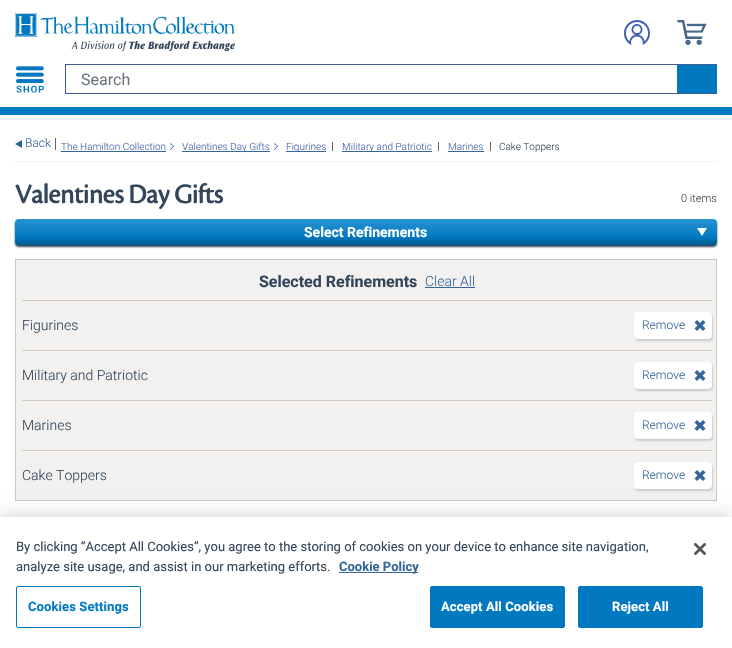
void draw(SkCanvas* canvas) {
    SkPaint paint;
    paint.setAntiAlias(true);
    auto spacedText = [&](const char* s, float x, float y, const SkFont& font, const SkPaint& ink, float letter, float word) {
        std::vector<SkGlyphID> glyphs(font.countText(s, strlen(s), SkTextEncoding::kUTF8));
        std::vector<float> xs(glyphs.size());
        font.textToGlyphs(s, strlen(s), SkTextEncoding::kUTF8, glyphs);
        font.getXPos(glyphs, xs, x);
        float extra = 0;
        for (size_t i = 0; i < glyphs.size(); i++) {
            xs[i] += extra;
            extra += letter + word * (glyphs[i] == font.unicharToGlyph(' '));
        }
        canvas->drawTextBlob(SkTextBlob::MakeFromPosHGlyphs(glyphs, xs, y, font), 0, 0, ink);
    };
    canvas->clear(0xFFFFFFFF);
    canvas->drawImageRect(SkImages::DeferredFromEncodedData(SkData::MakeFromFileName("img1.png")), SkRect::MakeXYWH(15, 13, 220, 38), SkSamplingOptions());
    canvas->drawImageRect(SkImages::DeferredFromEncodedData(SkData::MakeFromFileName("img2.png")), SkRect::MakeXYWH(624, 20, 26, 25), SkSamplingOptions());
    canvas->drawImageRect(SkImages::DeferredFromEncodedData(SkData::MakeFromFileName("img3.png")), SkRect::MakeXYWH(677, 20, 30, 25), SkSamplingOptions());
    canvas->drawImageRect(SkImages::DeferredFromEncodedData(SkData::MakeFromFileName("img4.png")), SkRect::MakeXYWH(16, 66, 28, 27), SkSamplingOptions());
    paint.setStyle(SkPaint::kStroke_Style);
    paint.setStrokeWidth(1);
    paint.setColor(0xFF3D5C91);
    canvas->drawRect(SkRect::MakeXYWH(65.5f, 64.5f, 651, 29), paint);
    SkFont font1(fontMgr->matchFamilyStyle("Roboto", SkFontStyle::Normal()), 16);
    font1.setSubpixel(true);
    paint.setStyle(SkPaint::kFill_Style);
    paint.setColor(0xFF6C757D);
    canvas->drawString("Search", 81, 85, font1, paint);
    paint.setColor(0xFF0079C1);
    canvas->drawRect(SkRect::MakeXYWH(677, 65, 40, 28), paint);
    canvas->drawRect(SkRect::MakeXYWH(0, 107, 732, 8), paint);
    paint.setColor(0xFFEAEDF1);
    canvas->drawRect(SkRect::MakeXYWH(0, 118, 732, 2), paint);
    paint.setColor(0xFFF2F1F0);
    canvas->drawRect(SkRect::MakeXYWH(15, 161, 702, 1), paint);
    paint.setColor(0xFF1E6791);
    canvas->drawPath(SkPathBuilder().moveTo(22, 140).lineTo(22, 148).lineTo(15, 144).close().detach(), paint);
    SkFont font2(fontMgr->matchFamilyStyle("Roboto", SkFontStyle(300, SkFontStyle::kNormal_Width, SkFontStyle::kUpright_Slant)), 12);
    font2.setSubpixel(true);
    paint.setColor(0xFF336699);
    canvas->drawString("Back", 25, 147, font2, paint);
    paint.setColor(0xFF686664);
    canvas->drawRect(SkRect::MakeXYWH(55, 138, 1, 12), paint);
    SkFont font3(fontMgr->matchFamilyStyle("Roboto", SkFontStyle(300, SkFontStyle::kNormal_Width, SkFontStyle::kUpright_Slant)), 10);
    font3.setSubpixel(true);
    paint.setColor(0xFF4360AE);
    canvas->drawString("The Hamilton Collection", 61, 150, font3, paint);
    paint.setColor(0xFF336699);
    canvas->drawRect(SkRect::MakeXYWH(61, 151, 105, 1), paint);
    paint.setColor(0xFF4360AE);
    canvas->drawPath(SkPathBuilder().moveTo(170.5f, 143).lineTo(174, 146.5f).lineTo(173.5f, 147).lineTo(170, 143.5f).close().detach(), paint);
    canvas->drawPath(SkPathBuilder().moveTo(173.5f, 146).lineTo(174, 146.5f).lineTo(170.5f, 150).lineTo(170, 149.5f).close().detach(), paint);
    paint.setColor(0xFF336699);
    canvas->drawRect(SkRect::MakeXYWH(182, 151, 88, 1), paint);
    paint.setColor(0xFF4360AE);
    canvas->drawString("Valentines Day Gifts", 182, 150, font3, paint);
    canvas->drawPath(SkPathBuilder().moveTo(274.5f, 143).lineTo(278, 146.5f).lineTo(277.5f, 147).lineTo(274, 143.5f).close().detach(), paint);
    canvas->drawPath(SkPathBuilder().moveTo(277.5f, 146).lineTo(278, 146.5f).lineTo(274.5f, 150).lineTo(274, 149.5f).close().detach(), paint);
    paint.setColor(0xFF336699);
    canvas->drawRect(SkRect::MakeXYWH(286, 151, 40, 1), paint);
    paint.setColor(0xFF4360AE);
    canvas->drawString("Figurines", 286, 150, font3, paint);
    paint.setColor(0xFF686664);
    canvas->drawRect(SkRect::MakeXYWH(332, 142, 1, 9), paint);
    paint.setColor(0xFF336699);
    canvas->drawRect(SkRect::MakeXYWH(342, 151, 90, 1), paint);
    paint.setColor(0xFF4360AE);
    canvas->drawString("Military and Patriotic", 342, 150, font3, paint);
    paint.setColor(0xFF686664);
    canvas->drawRect(SkRect::MakeXYWH(438, 142, 1, 9), paint);
    paint.setColor(0xFF4360AE);
    canvas->drawString("Marines", 448, 150, font3, paint);
    paint.setColor(0xFF336699);
    canvas->drawRect(SkRect::MakeXYWH(448, 151, 36, 1), paint);
    paint.setColor(0xFF686664);
    canvas->drawRect(SkRect::MakeXYWH(490, 142, 1, 9), paint);
    paint.setColor(0xFF32465A);
    canvas->drawString("Cake Toppers", 499, 150, font3, paint);
    SkFont font4(fontMgr->matchFamilyStyle("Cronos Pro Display", SkFontStyle::Bold()), 28);
    font4.setSubpixel(true);
    canvas->drawString("Valentines Day Gifts", 15, 203, font4, paint);
    SkFont font5(fontMgr->matchFamilyStyle("Roboto", SkFontStyle(300, SkFontStyle::kNormal_Width, SkFontStyle::kUpright_Slant)), 11);
    font5.setSubpixel(true);
    paint.setColor(0xFF474441);
    canvas->drawString("0 items", 681, 202, font5, paint);
    paint.setColor(0xFF32465A);
    paint.setMaskFilter(SkMaskFilter::MakeBlur(kNormal_SkBlurStyle, 1));
    canvas->drawRoundRect(SkRect::MakeXYWH(15, 221, 702, 26), 4, 4, paint);
    paint.setMaskFilter(nullptr);
    {
        const SkColor colors[] = {0xFF2993D3, 0xFF0079C1, 0xFF00598E};
        const float stops[] = {0, 0.69f, 1};
        const SkPoint ends[] = {{366, 219}, {366, 245}};
        paint.setShader(SkGradientShader::MakeLinear(ends, colors, stops, 3, SkTileMode::kClamp));
        paint.setAlpha(255);
    }
    canvas->drawRoundRect(SkRect::MakeXYWH(15, 219, 702, 26), 4, 4, paint);
    SkFont font6(fontMgr->matchFamilyStyle("Roboto", SkFontStyle::Bold()), 14);
    font6.setSubpixel(true);
    paint.setShader(nullptr);
    paint.setColor(0xFFFFFFFF);
    canvas->drawString("Select Refinements", 304, 237, font6, paint);
    canvas->drawPath(SkPathBuilder().moveTo(697, 228).lineTo(707, 228).lineTo(702, 236).close().detach(), paint);
    paint.setColor(0xFFF2F1F0);
    canvas->drawRect(SkRect::MakeXYWH(15.5f, 259.5f, 701, 241), paint);
    paint.setStyle(SkPaint::kStroke_Style);
    paint.setColor(0xFFCFC8C0);
    canvas->drawRect(SkRect::MakeXYWH(15.5f, 259.5f, 701, 241), paint);
    SkFont font7(fontMgr->matchFamilyStyle("Roboto", SkFontStyle::Bold()), 16);
    font7.setSubpixel(true);
    paint.setStyle(SkPaint::kFill_Style);
    paint.setColor(0xFF32465A);
    canvas->drawString("Selected Refinements", 259, 287, font7, paint);
    SkFont font8(fontMgr->matchFamilyStyle("Roboto", SkFontStyle(300, SkFontStyle::kNormal_Width, SkFontStyle::kUpright_Slant)), 14);
    font8.setSubpixel(true);
    paint.setColor(0xFF336699);
    canvas->drawString("Clear All", 425, 286, font8, paint);
    canvas->drawRect(SkRect::MakeXYWH(425, 287, 50, 1), paint);
    paint.setColor(0xFFCFC8C0);
    canvas->drawRect(SkRect::MakeXYWH(22, 300, 690, 1), paint);
    paint.setColor(0xFF32465A);
    canvas->drawString("Figurines", 22, 330, font8, paint);
    paint.setColor(0x29000000);
    paint.setMaskFilter(SkMaskFilter::MakeBlur(kNormal_SkBlurStyle, 1));
    canvas->drawRoundRect(SkRect::MakeXYWH(635, 314, 78, 27), 4, 4, paint);
    paint.setMaskFilter(nullptr);
    paint.setColor(0xFFFFFFFF);
    canvas->drawRoundRect(SkRect::MakeXYWH(634, 312, 78, 27), 4, 4, paint);
    paint.setColor(0xFF336699);
    canvas->drawString("Remove", 642, 329, font2, paint);
    canvas->drawPath(SkPathBuilder().moveTo(697, 320).lineTo(705.5f, 328.5f).lineTo(703, 331).lineTo(694.5f, 322.5f).close().detach(), paint);
    canvas->drawPath(SkPathBuilder().moveTo(705.5f, 322.5f).lineTo(697, 331).lineTo(694.5f, 328.5f).lineTo(703, 320).close().detach(), paint);
    paint.setColor(0xFFCFC8C0);
    canvas->drawRect(SkRect::MakeXYWH(22, 350, 690, 1), paint);
    paint.setColor(0xFF32465A);
    canvas->drawString("Military and Patriotic", 22, 380, font8, paint);
    paint.setColor(0x29000000);
    paint.setMaskFilter(SkMaskFilter::MakeBlur(kNormal_SkBlurStyle, 1));
    canvas->drawRoundRect(SkRect::MakeXYWH(635, 364, 78, 27), 4, 4, paint);
    paint.setMaskFilter(nullptr);
    paint.setColor(0xFFFFFFFF);
    canvas->drawRoundRect(SkRect::MakeXYWH(634, 362, 78, 27), 4, 4, paint);
    paint.setColor(0xFF336699);
    canvas->drawString("Remove", 642, 379, font2, paint);
    canvas->drawPath(SkPathBuilder().moveTo(697, 370).lineTo(705.5f, 378.5f).lineTo(703, 381).lineTo(694.5f, 372.5f).close().detach(), paint);
    canvas->drawPath(SkPathBuilder().moveTo(705.5f, 372.5f).lineTo(697, 381).lineTo(694.5f, 378.5f).lineTo(703, 370).close().detach(), paint);
    paint.setColor(0xFFCFC8C0);
    canvas->drawRect(SkRect::MakeXYWH(22, 400, 690, 1), paint);
    paint.setColor(0xFF32465A);
    canvas->drawString("Marines", 22, 430, font8, paint);
    paint.setColor(0x29000000);
    paint.setMaskFilter(SkMaskFilter::MakeBlur(kNormal_SkBlurStyle, 1));
    canvas->drawRoundRect(SkRect::MakeXYWH(635, 414, 78, 27), 4, 4, paint);
    paint.setMaskFilter(nullptr);
    paint.setColor(0xFFFFFFFF);
    canvas->drawRoundRect(SkRect::MakeXYWH(634, 412, 78, 27), 4, 4, paint);
    paint.setColor(0xFF336699);
    canvas->drawString("Remove", 642, 429, font2, paint);
    canvas->drawPath(SkPathBuilder().moveTo(697, 420).lineTo(705.5f, 428.5f).lineTo(703, 431).lineTo(694.5f, 422.5f).close().detach(), paint);
    canvas->drawPath(SkPathBuilder().moveTo(705.5f, 422.5f).lineTo(697, 431).lineTo(694.5f, 428.5f).lineTo(703, 420).close().detach(), paint);
    paint.setColor(0xFFCFC8C0);
    canvas->drawRect(SkRect::MakeXYWH(22, 450, 690, 1), paint);
    paint.setColor(0xFF32465A);
    canvas->drawString("Cake Toppers", 22, 480, font8, paint);
    paint.setColor(0x29000000);
    paint.setMaskFilter(SkMaskFilter::MakeBlur(kNormal_SkBlurStyle, 1));
    canvas->drawRoundRect(SkRect::MakeXYWH(635, 464, 78, 27), 4, 4, paint);
    paint.setMaskFilter(nullptr);
    paint.setColor(0xFFFFFFFF);
    canvas->drawRoundRect(SkRect::MakeXYWH(634, 462, 78, 27), 4, 4, paint);
    paint.setColor(0xFF336699);
    canvas->drawString("Remove", 642, 479, font2, paint);
    canvas->drawPath(SkPathBuilder().moveTo(697, 470).lineTo(705.5f, 478.5f).lineTo(703, 481).lineTo(694.5f, 472.5f).close().detach(), paint);
    canvas->drawPath(SkPathBuilder().moveTo(705.5f, 472.5f).lineTo(697, 481).lineTo(694.5f, 478.5f).lineTo(703, 470).close().detach(), paint);
    paint.setColor(0x33000000);
    paint.setMaskFilter(SkMaskFilter::MakeBlur(kNormal_SkBlurStyle, 9));
    canvas->drawRect(SkRect::MakeXYWH(0, 517, 732, 131), paint);
    paint.setMaskFilter(nullptr);
    paint.setColor(0xFFFFFFFF);
    canvas->drawRect(SkRect::MakeXYWH(0, 517, 732, 131), paint);
    SkFont font9(fontMgr->matchFamilyStyle("Roboto", SkFontStyle::Normal()), 13);
    font9.setSubpixel(true);
    paint.setColor(0xFF32465A);
    canvas->drawString("By clicking “Accept All Cookies”, you agree to the storing of cookies on your device to enhance site navigation,", 16, 551, font9, paint);
    canvas->drawString("analyze site usage, and assist in our marketing efforts.", 16, 571, font9, paint);
    paint.setColor(0xFF336699);
    canvas->drawRect(SkRect::MakeXYWH(339, 572, 79, 1), paint);
    SkFont font10(fontMgr->matchFamilyStyle("Roboto", SkFontStyle::Bold()), 13);
    font10.setSubpixel(true);
    canvas->drawString("Cookie Policy", 339, 571, font10, paint);
    paint.setStyle(SkPaint::kStroke_Style);
    paint.setColor(0xFF0079C1);
    canvas->drawRoundRect(SkRect::MakeXYWH(16.5f, 586.5f, 124, 41), 1.5f, 1.5f, paint);
    paint.setStyle(SkPaint::kFill_Style);
    spacedText("Cookies Settings", 28, 611, font10, paint, 0.1f, 0);
    canvas->drawRoundRect(SkRect::MakeXYWH(430.5f, 586.5f, 134, 41), 1.5f, 1.5f, paint);
    paint.setStyle(SkPaint::kStroke_Style);
    canvas->drawRoundRect(SkRect::MakeXYWH(430.5f, 586.5f, 134, 41), 1.5f, 1.5f, paint);
    paint.setStyle(SkPaint::kFill_Style);
    paint.setColor(0xFFFFFFFF);
    spacedText("Accept All Cookies", 441, 611, font10, paint, 0.1f, 0);
    paint.setColor(0xFF0079C1);
    canvas->drawRoundRect(SkRect::MakeXYWH(578.5f, 586.5f, 124, 41), 1.5f, 1.5f, paint);
    paint.setStyle(SkPaint::kStroke_Style);
    canvas->drawRoundRect(SkRect::MakeXYWH(578.5f, 586.5f, 124, 41), 1.5f, 1.5f, paint);
    paint.setStyle(SkPaint::kFill_Style);
    paint.setColor(0xFFFFFFFF);
    spacedText("Reject All", 612, 611, font10, paint, 0.1f, 0);
    canvas->drawImageRect(SkImages::DeferredFromEncodedData(SkData::MakeFromFileName("img5.png")), SkRect::MakeXYWH(694, 543, 12, 12), SkSamplingOptions());
}
